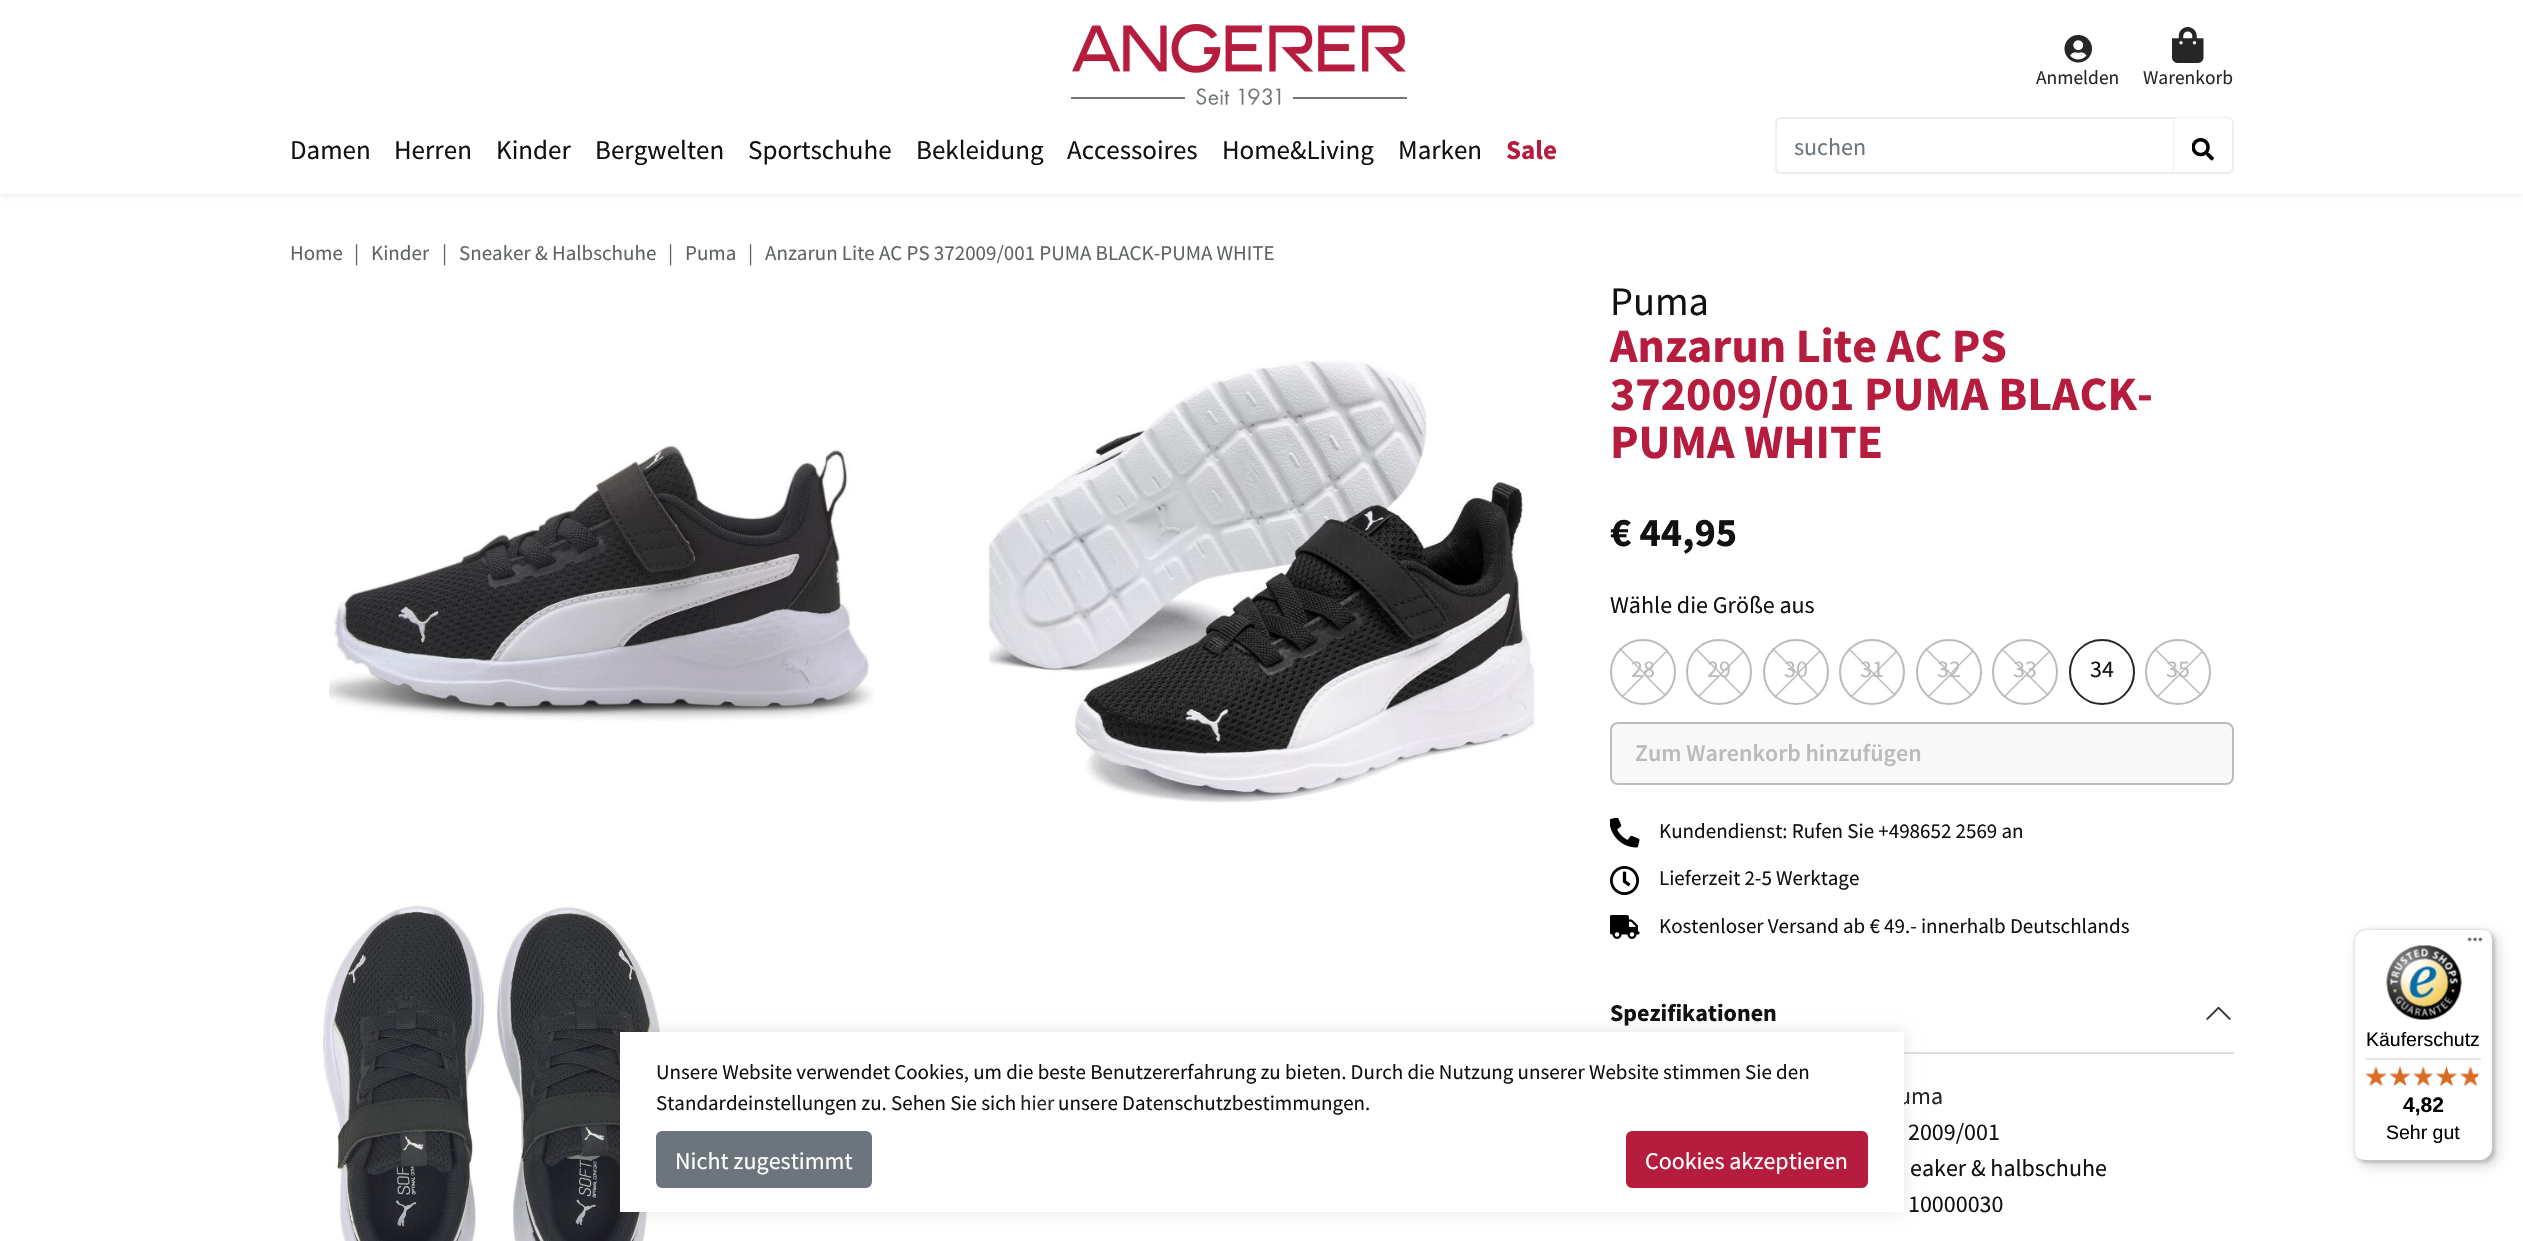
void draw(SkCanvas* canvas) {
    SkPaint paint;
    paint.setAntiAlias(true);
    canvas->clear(0xFFFFFFFF);
    paint.setColor(0x1A000000);
    paint.setMaskFilter(SkMaskFilter::MakeBlur(kNormal_SkBlurStyle, 4));
    canvas->drawRect(SkRect::MakeXYWH(0, 0, 2523, 194), paint);
    paint.setMaskFilter(nullptr);
    paint.setColor(0xFFFFFFFF);
    canvas->drawRect(SkRect::MakeXYWH(0, 0, 2523, 194), paint);
    canvas->drawImageRect(SkImages::DeferredFromEncodedData(SkData::MakeFromFileName("img1.png")), SkRect::MakeXYWH(1071, 24, 336, 81), SkSamplingOptions());
    canvas->drawImageRect(SkImages::DeferredFromEncodedData(SkData::MakeFromFileName("img2.png")), SkRect::MakeXYWH(2064, 35, 29, 28), SkSamplingOptions());
    SkFont font1(fontMgr->matchFamilyStyle("Source Sans Pro", SkFontStyle::Normal()), 19.5f);
    font1.setSubpixel(true);
    paint.setColor(0xFF262626);
    canvas->drawString("Anmelden", 2036, 84, font1, paint);
    canvas->drawImageRect(SkImages::DeferredFromEncodedData(SkData::MakeFromFileName("img3.png")), SkRect::MakeXYWH(2172, 27, 32, 36), SkSamplingOptions());
    canvas->drawString("Warenkorb", 2143, 84, font1, paint);
    SkFont font2(fontMgr->matchFamilyStyle("Source Sans Pro", SkFontStyle::Normal()), 27);
    font2.setSubpixel(true);
    paint.setColor(0xFF111111);
    canvas->drawString("Damen", 290, 159, font2, paint);
    canvas->drawString("Herren", 394, 159, font2, paint);
    canvas->drawString("Kinder", 496, 159, font2, paint);
    canvas->drawString("Bergwelten", 595, 159, font2, paint);
    canvas->drawString("Sportschuhe", 748, 159, font2, paint);
    canvas->drawString("Bekleidung", 916, 159, font2, paint);
    canvas->drawString("Accessoires", 1067, 159, font2, paint);
    canvas->drawString("Home&Living", 1222, 159, font2, paint);
    canvas->drawString("Marken", 1398, 159, font2, paint);
    SkFont font3(fontMgr->matchFamilyStyle("Source Sans Pro", SkFontStyle::Bold()), 27);
    font3.setSubpixel(true);
    paint.setColor(0xFFB61C3E);
    canvas->drawString("Sale", 1506, 159, font3, paint);
    paint.setStyle(SkPaint::kStroke_Style);
    paint.setStrokeWidth(2);
    paint.setColor(0xFFEFEDF0);
    canvas->drawPath(SkPathBuilder().moveTo(1781, 118).lineTo(2174, 118).lineTo(2174, 173).lineTo(1781, 173).cubicTo(1778, 173, 1776, 171, 1776, 168).lineTo(1776, 123).cubicTo(1776, 120, 1778, 118, 1781, 118).close().detach(), paint);
    SkFont font4(fontMgr->matchFamilyStyle("Source Sans Pro", SkFontStyle::Normal()), 24);
    font4.setSubpixel(true);
    paint.setStyle(SkPaint::kFill_Style);
    paint.setColor(0xFF6C757D);
    canvas->drawString("suchen", 1794, 155, font4, paint);
    paint.setColor(0xFFFFFFFF);
    canvas->drawPath(SkPathBuilder().moveTo(2174, 119).lineTo(2227, 119).cubicTo(2230, 119, 2232, 121, 2232, 124).lineTo(2232, 168).cubicTo(2232, 171, 2230, 173, 2227, 173).lineTo(2174, 173).close().detach(), paint);
    paint.setColor(0xFFEFEDF0);
    canvas->drawPath(SkPathBuilder(SkPathFillType::kEvenOdd).moveTo(2174, 117).lineTo(2228, 117).cubicTo(2231, 117, 2234, 120, 2234, 123).lineTo(2234, 168).cubicTo(2234, 171, 2231, 174, 2228, 174).lineTo(2174, 174).close().moveTo(2174, 118).lineTo(2228, 118).cubicTo(2230, 118, 2232, 121, 2232, 123).lineTo(2232, 168).cubicTo(2232, 170, 2230, 172, 2228, 172).lineTo(2174, 172).close().detach(), paint);
    canvas->drawImageRect(SkImages::DeferredFromEncodedData(SkData::MakeFromFileName("img4.png")), SkRect::MakeXYWH(2192, 138, 22, 23), SkSamplingOptions());
    SkFont font5(fontMgr->matchFamilyStyle("Source Sans Pro", SkFontStyle::Normal()), 21);
    font5.setSubpixel(true);
    paint.setColor(0xFF5E6463);
    canvas->drawString("Home", 290, 260, font5, paint);
    canvas->drawString("|", 354, 260, font5, paint);
    canvas->drawString("Kinder", 371, 260, font5, paint);
    canvas->drawString("|", 442, 260, font5, paint);
    canvas->drawString("Sneaker & Halbschuhe", 459, 260, font5, paint);
    canvas->drawString("|", 668, 260, font5, paint);
    canvas->drawString("Puma", 685, 260, font5, paint);
    canvas->drawString("|", 748, 260, font5, paint);
    canvas->drawString("Anzarun Lite AC PS 372009/001 PUMA BLACK-PUMA WHITE", 765, 260, font5, paint);
    canvas->drawImageRect(SkImages::DeferredFromEncodedData(SkData::MakeFromFileName("img5.png")), SkRect::MakeXYWH(329, 444, 545, 277), SkSamplingOptions());
    canvas->drawImageRect(SkImages::DeferredFromEncodedData(SkData::MakeFromFileName("img6.png")), SkRect::MakeXYWH(986, 360, 549, 443), SkSamplingOptions());
    canvas->drawImageRect(SkImages::DeferredFromEncodedData(SkData::MakeFromFileName("img7.png")), SkRect::MakeXYWH(322, 905, 339, 336), SkSamplingOptions());
    SkFont font6(fontMgr->matchFamilyStyle("Source Sans Pro", SkFontStyle::Normal()), 40.5f);
    font6.setSubpixel(true);
    paint.setColor(0xFF111111);
    canvas->drawString("Puma", 1610, 315, font6, paint);
    SkFont font7(fontMgr->matchFamilyStyle("Source Sans Pro", SkFontStyle::Bold()), 48);
    font7.setSubpixel(true);
    paint.setColor(0xFFB61C3E);
    canvas->drawString("Anzarun Lite AC PS", 1610, 362, font7, paint);
    canvas->drawString("372009/001 PUMA BLACK-", 1610, 410, font7, paint);
    canvas->drawString("PUMA WHITE", 1610, 458, font7, paint);
    SkFont font8(fontMgr->matchFamilyStyle("Source Sans Pro", SkFontStyle::Bold()), 40.5f);
    font8.setSubpixel(true);
    paint.setColor(0xFF111111);
    canvas->drawString("€ 44,95", 1610, 546, font8, paint);
    canvas->drawString("Wähle die Größe aus", 1610, 613, font4, paint);
    canvas->drawImageRect(SkImages::DeferredFromEncodedData(SkData::MakeFromFileName("img8.png")), SkRect::MakeXYWH(1619, 648, 49, 50), SkSamplingOptions());
    paint.setStyle(SkPaint::kStroke_Style);
    paint.setColor(0xFFBBBBBB);
    canvas->drawCircle(1643, 672, 32, paint);
    paint.setStyle(SkPaint::kFill_Style);
    canvas->drawString("28", 1631, 677, font4, paint);
    canvas->drawImageRect(SkImages::DeferredFromEncodedData(SkData::MakeFromFileName("img9.png")), SkRect::MakeXYWH(1695, 648, 50, 50), SkSamplingOptions());
    paint.setStyle(SkPaint::kStroke_Style);
    canvas->drawCircle(1719, 672, 32, paint);
    paint.setStyle(SkPaint::kFill_Style);
    canvas->drawString("29", 1707, 677, font4, paint);
    canvas->drawImageRect(SkImages::DeferredFromEncodedData(SkData::MakeFromFileName("img10.png")), SkRect::MakeXYWH(1772, 648, 49, 50), SkSamplingOptions());
    paint.setStyle(SkPaint::kStroke_Style);
    canvas->drawCircle(1796, 672, 32, paint);
    paint.setStyle(SkPaint::kFill_Style);
    canvas->drawString("30", 1784, 677, font4, paint);
    canvas->drawImageRect(SkImages::DeferredFromEncodedData(SkData::MakeFromFileName("img9.png")), SkRect::MakeXYWH(1848, 648, 50, 50), SkSamplingOptions());
    paint.setStyle(SkPaint::kStroke_Style);
    canvas->drawCircle(1872, 672, 32, paint);
    paint.setStyle(SkPaint::kFill_Style);
    canvas->drawString("31", 1860, 677, font4, paint);
    canvas->drawImageRect(SkImages::DeferredFromEncodedData(SkData::MakeFromFileName("img8.png")), SkRect::MakeXYWH(1925, 648, 49, 50), SkSamplingOptions());
    paint.setStyle(SkPaint::kStroke_Style);
    canvas->drawCircle(1949, 672, 32, paint);
    paint.setStyle(SkPaint::kFill_Style);
    canvas->drawString("32", 1937, 677, font4, paint);
    canvas->drawImageRect(SkImages::DeferredFromEncodedData(SkData::MakeFromFileName("img9.png")), SkRect::MakeXYWH(2001, 648, 50, 50), SkSamplingOptions());
    paint.setStyle(SkPaint::kStroke_Style);
    canvas->drawCircle(2025, 672, 32, paint);
    paint.setStyle(SkPaint::kFill_Style);
    canvas->drawString("33", 2013, 677, font4, paint);
    paint.setStyle(SkPaint::kStroke_Style);
    paint.setColor(0xFF262626);
    canvas->drawCircle(2102, 672, 32, paint);
    paint.setStyle(SkPaint::kFill_Style);
    paint.setColor(0xFF111111);
    canvas->drawString("34", 2090, 677, font4, paint);
    canvas->drawImageRect(SkImages::DeferredFromEncodedData(SkData::MakeFromFileName("img9.png")), SkRect::MakeXYWH(2154, 648, 50, 50), SkSamplingOptions());
    paint.setStyle(SkPaint::kStroke_Style);
    paint.setColor(0xFFBBBBBB);
    canvas->drawCircle(2178, 672, 32, paint);
    paint.setStyle(SkPaint::kFill_Style);
    canvas->drawString("35", 2166, 677, font4, paint);
    paint.setColor(0xFFF9F8F9);
    canvas->drawRoundRect(SkRect::MakeXYWH(1610, 722, 624, 63), 8, 8, paint);
    paint.setStyle(SkPaint::kStroke_Style);
    paint.setColor(0x665E6463);
    canvas->drawRoundRect(SkRect::MakeXYWH(1611, 723, 622, 61), 7, 7, paint);
    SkFont font9(fontMgr->matchFamilyStyle("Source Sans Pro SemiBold", SkFontStyle(600, SkFontStyle::kNormal_Width, SkFontStyle::kUpright_Slant)), 24);
    font9.setSubpixel(true);
    paint.setStyle(SkPaint::kFill_Style);
    paint.setColor(0xFFBBBBBB);
    canvas->drawString("Zum Warenkorb hinzufügen", 1635, 761, font9, paint);
    canvas->drawImageRect(SkImages::DeferredFromEncodedData(SkData::MakeFromFileName("img11.png")), SkRect::MakeXYWH(1610, 818, 30, 30), SkSamplingOptions());
    paint.setColor(0xFF111111);
    canvas->drawString("Kundendienst: Rufen Sie +498652 2569 an", 1659, 838, font5, paint);
    canvas->drawImageRect(SkImages::DeferredFromEncodedData(SkData::MakeFromFileName("img12.png")), SkRect::MakeXYWH(1610, 866, 29, 29), SkSamplingOptions());
    canvas->drawString("Lieferzeit 2-5 Werktage", 1659, 885, font5, paint);
    canvas->drawImageRect(SkImages::DeferredFromEncodedData(SkData::MakeFromFileName("img13.png")), SkRect::MakeXYWH(1610, 915, 30, 24), SkSamplingOptions());
    canvas->drawString("Kostenloser Versand ab € 49.- innerhalb Deutschlands", 1659, 933, font5, paint);
    paint.setColor(0xFFDFDFDF);
    canvas->drawRect(SkRect::MakeXYWH(1904, 1052, 330, 2), paint);
    SkFont font10(fontMgr->matchFamilyStyle("Source Sans Pro", SkFontStyle::Bold()), 24);
    font10.setSubpixel(true);
    paint.setColor(0xFF111111);
    canvas->drawString("Spezifikationen", 1610, 1021, font10, paint);
    canvas->drawImageRect(SkImages::DeferredFromEncodedData(SkData::MakeFromFileName("img14.png")), SkRect::MakeXYWH(2206, 1006, 25, 14), SkSamplingOptions());
    paint.setColor(0xFF262626);
    canvas->drawString("uma", 1898, 1104, font4, paint);
    paint.setColor(0xFF111111);
    canvas->drawString("2009/001", 1908, 1140, font4, paint);
    canvas->drawString("eaker & halbschuhe", 1910, 1176, font4, paint);
    canvas->drawString("10000030", 1908, 1212, font4, paint);
    paint.setColor(0x1A000000);
    paint.setMaskFilter(SkMaskFilter::MakeBlur(kNormal_SkBlurStyle, 7.5f));
    canvas->drawRect(SkRect::MakeXYWH(620, 1032, 1284, 180), paint);
    paint.setMaskFilter(nullptr);
    paint.setColor(0xFFFFFFFF);
    canvas->drawRect(SkRect::MakeXYWH(620, 1032, 1284, 180), paint);
    paint.setColor(0xFF111111);
    canvas->drawString("Unsere Website verwendet Cookies, um die beste Benutzererfahrung zu bieten. Durch die Nutzung unserer Website stimmen Sie den", 656, 1079, font5, paint);
    canvas->drawString("Standardeinstellungen zu. Sehen Sie sich", 656, 1110, font5, paint);
    paint.setColor(0xFF262626);
    canvas->drawString("hier", 1020, 1110, font5, paint);
    paint.setColor(0xFF111111);
    canvas->drawString("unsere Datenschutzbestimmungen.", 1058, 1110, font5, paint);
    paint.setColor(0xFF6C757D);
    canvas->drawRoundRect(SkRect::MakeXYWH(657, 1132, 214, 55), 5, 5, paint);
    paint.setStyle(SkPaint::kStroke_Style);
    canvas->drawRoundRect(SkRect::MakeXYWH(657, 1132, 214, 55), 5, 5, paint);
    paint.setStyle(SkPaint::kFill_Style);
    paint.setColor(0xFFFFFFFF);
    canvas->drawString("Nicht zugestimmt", 675, 1169, font4, paint);
    paint.setColor(0xFFB61C3E);
    canvas->drawRoundRect(SkRect::MakeXYWH(1627, 1132, 240, 55), 5, 5, paint);
    paint.setStyle(SkPaint::kStroke_Style);
    canvas->drawRoundRect(SkRect::MakeXYWH(1627, 1132, 240, 55), 5, 5, paint);
    paint.setStyle(SkPaint::kFill_Style);
    paint.setColor(0xFFFFFFFF);
    canvas->drawString("Cookies akzeptieren", 1645, 1169, font4, paint);
    paint.setColor(0x26000000);
    paint.setMaskFilter(SkMaskFilter::MakeBlur(kNormal_SkBlurStyle, 6));
    canvas->drawRoundRect(SkRect::MakeXYWH(2358, 933, 140, 233), 12, 12, paint);
    paint.setMaskFilter(nullptr);
    paint.setMaskFilter(SkMaskFilter::MakeBlur(kNormal_SkBlurStyle, 1.5f));
    canvas->drawRoundRect(SkRect::MakeXYWH(2355, 930, 140, 233), 12, 12, paint);
    paint.setMaskFilter(nullptr);
    paint.setColor(0xFFFFFFFF);
    canvas->drawRoundRect(SkRect::MakeXYWH(2354, 929, 139, 232), 12, 12, paint);
    paint.setColor(0xFFE5E5E5);
    canvas->drawPath(SkPathBuilder().moveTo(2367, 930).lineTo(2482, 930).cubicTo(2485, 930, 2487, 931, 2489, 932).cubicTo(2487, 930, 2484, 929, 2481, 929).lineTo(2366, 929).cubicTo(2359, 929, 2354, 934, 2354, 941).lineTo(2354, 1149).cubicTo(2354, 1152, 2355, 1155, 2357, 1157).cubicTo(2356, 1155, 2355, 1153, 2355, 1150).lineTo(2355, 942).cubicTo(2355, 935, 2360, 930, 2367, 930).close().detach(), paint);
    paint.setColor(0x33000000);
    canvas->drawPath(SkPathBuilder().moveTo(2360, 1159).cubicTo(2361, 1160, 2364, 1161, 2366, 1161).lineTo(2481, 1161).cubicTo(2488, 1161, 2493, 1156, 2493, 1149).lineTo(2493, 941).cubicTo(2493, 939, 2492, 936, 2491, 935).lineTo(2492, 939).lineTo(2492, 1148).cubicTo(2492, 1154, 2486, 1160, 2480, 1160).lineTo(2364, 1160).close().detach(), paint);
    paint.setColor(0x33323232);
    canvas->drawPath(SkPathBuilder().moveTo(2358, 1158).cubicTo(2360, 1160, 2363, 1161, 2366, 1161).lineTo(2481, 1161).cubicTo(2488, 1161, 2493, 1156, 2493, 1149).lineTo(2493, 941).cubicTo(2493, 938, 2492, 935, 2490, 933).cubicTo(2491, 935, 2492, 937, 2492, 940).lineTo(2492, 1148).cubicTo(2492, 1155, 2487, 1160, 2480, 1160).lineTo(2365, 1160).cubicTo(2362, 1160, 2360, 1159, 2358, 1158).close().detach(), paint);
    paint.setColor(0x4DFFFFFF);
    canvas->drawPath(SkPathBuilder().moveTo(2358, 1158).cubicTo(2360, 1160, 2363, 1161, 2366, 1161).lineTo(2481, 1161).cubicTo(2488, 1161, 2493, 1156, 2493, 1149).lineTo(2493, 941).cubicTo(2493, 938, 2492, 935, 2490, 933).cubicTo(2491, 935, 2492, 937, 2492, 940).lineTo(2492, 1148).cubicTo(2492, 1155, 2487, 1160, 2480, 1160).lineTo(2365, 1160).cubicTo(2362, 1160, 2360, 1159, 2358, 1158).close().detach(), paint);
    canvas->drawImageRect(SkImages::DeferredFromEncodedData(SkData::MakeFromFileName("img15.png")), SkRect::MakeXYWH(2467, 937, 16, 5), SkSamplingOptions());
    canvas->drawImageRect(SkImages::DeferredFromEncodedData(SkData::MakeFromFileName("img16.png")), SkRect::MakeXYWH(2386, 945, 76, 75), SkSamplingOptions());
    SkFont font11(fontMgr->matchFamilyStyle("Liberation Sans", SkFontStyle::Normal()), 19.5f);
    font11.setSubpixel(true);
    paint.setColor(0xFF000000);
    canvas->drawString("Käuferschutz", 2366, 1046, font11, paint);
    paint.setColor(0xFFE5E5E5);
    canvas->drawRect(SkRect::MakeXYWH(2366, 1058, 115, 2), paint);
    canvas->drawImageRect(SkImages::DeferredFromEncodedData(SkData::MakeFromFileName("img22.png")), SkRect::MakeXYWH(2366, 1067, 20, 19), SkSamplingOptions());
    canvas->drawImageRect(SkImages::DeferredFromEncodedData(SkData::MakeFromFileName("img17.png")), SkRect::MakeXYWH(2365, 1066, 22, 20), SkSamplingOptions());
    canvas->drawImageRect(SkImages::DeferredFromEncodedData(SkData::MakeFromFileName("img23.png")), SkRect::MakeXYWH(2390, 1066, 20, 20), SkSamplingOptions());
    canvas->drawImageRect(SkImages::DeferredFromEncodedData(SkData::MakeFromFileName("img18.png")), SkRect::MakeXYWH(2390, 1066, 20, 20), SkSamplingOptions());
    canvas->drawImageRect(SkImages::DeferredFromEncodedData(SkData::MakeFromFileName("img24.png")), SkRect::MakeXYWH(2413, 1066, 20, 20), SkSamplingOptions());
    canvas->drawImageRect(SkImages::DeferredFromEncodedData(SkData::MakeFromFileName("img19.png")), SkRect::MakeXYWH(2413, 1066, 20, 20), SkSamplingOptions());
    canvas->drawImageRect(SkImages::DeferredFromEncodedData(SkData::MakeFromFileName("img25.png")), SkRect::MakeXYWH(2436, 1066, 21, 20), SkSamplingOptions());
    canvas->drawImageRect(SkImages::DeferredFromEncodedData(SkData::MakeFromFileName("img20.png")), SkRect::MakeXYWH(2436, 1066, 21, 20), SkSamplingOptions());
    canvas->drawImageRect(SkImages::DeferredFromEncodedData(SkData::MakeFromFileName("img26.png")), SkRect::MakeXYWH(2460, 1067, 21, 19), SkSamplingOptions());
    canvas->drawImageRect(SkImages::DeferredFromEncodedData(SkData::MakeFromFileName("img21.png")), SkRect::MakeXYWH(2460, 1066, 18, 20), SkSamplingOptions());
    SkFont font12(fontMgr->matchFamilyStyle("Liberation Sans", SkFontStyle::Bold()), 21);
    font12.setSubpixel(true);
    paint.setColor(0xFF000000);
    canvas->drawString("4,82", 2403, 1112, font12, paint);
    canvas->drawString("Sehr gut", 2386, 1139, font11, paint);
}
